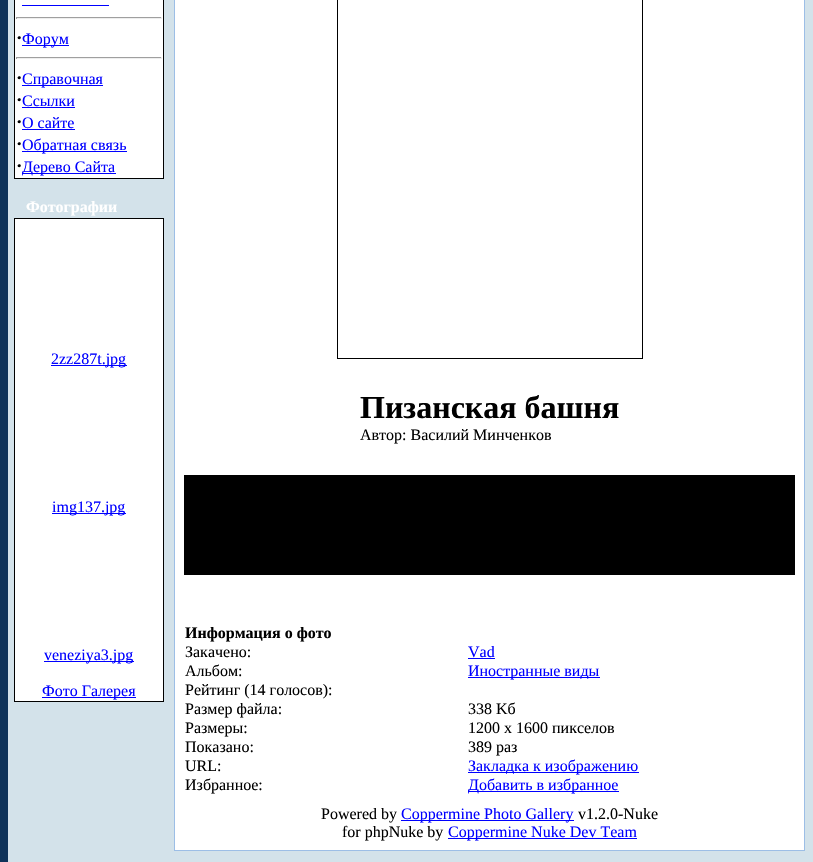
void draw(SkCanvas* canvas) {
    SkPaint paint;
    paint.setAntiAlias(true);
    canvas->clear(0xFF0E3259);
    paint.setColor(0xFFD3E2EA);
    canvas->drawRect(SkRect::MakeXYWH(8, 0, 805, 862), paint);
    paint.setColor(0xFF000000);
    canvas->drawRect(SkRect::MakeXYWH(14, 0, 150, 179), paint);
    paint.setColor(0xFFFFFFFF);
    canvas->drawRect(SkRect::MakeXYWH(15, 0, 148, 178), paint);
    paint.setColor(0xFF0000FF);
    canvas->drawRect(SkRect::MakeXYWH(22, 5, 87, 1), paint);
    paint.setColor(0xFF9F9F9F);
    canvas->drawRect(SkRect::MakeXYWH(16, 17, 146, 1), paint);
    paint.setColor(0xFFEEEEEE);
    canvas->drawRect(SkRect::MakeXYWH(161, 17, 1, 2), paint);
    canvas->drawRect(SkRect::MakeXYWH(16, 18, 146, 1), paint);
    paint.setColor(0xFF9F9F9F);
    canvas->drawRect(SkRect::MakeXYWH(16, 17, 1, 2), paint);
    SkFont font1(fontMgr->matchFamilyStyle("Liberation Serif", SkFontStyle::Bold()), 19);
    font1.setSubpixel(true);
    paint.setColor(0xFF000000);
    canvas->drawString("·", 16, 44, font1, paint);
    paint.setColor(0xFF0000FF);
    canvas->drawRect(SkRect::MakeXYWH(22, 45, 47, 1), paint);
    SkFont font2(fontMgr->matchFamilyStyle("Liberation Serif", SkFontStyle::Normal()), 16);
    font2.setSubpixel(true);
    canvas->drawString("Форум", 22, 44, font2, paint);
    paint.setColor(0xFF9F9F9F);
    canvas->drawRect(SkRect::MakeXYWH(16, 57, 146, 1), paint);
    paint.setColor(0xFFEEEEEE);
    canvas->drawRect(SkRect::MakeXYWH(161, 57, 1, 2), paint);
    canvas->drawRect(SkRect::MakeXYWH(16, 58, 146, 1), paint);
    paint.setColor(0xFF9F9F9F);
    canvas->drawRect(SkRect::MakeXYWH(16, 57, 1, 2), paint);
    paint.setColor(0xFF000000);
    canvas->drawString("·", 16, 84, font1, paint);
    paint.setColor(0xFF0000FF);
    canvas->drawRect(SkRect::MakeXYWH(22, 85, 81, 1), paint);
    canvas->drawString("Справочная", 22, 84, font2, paint);
    paint.setColor(0xFF000000);
    canvas->drawString("·", 16, 106, font1, paint);
    paint.setColor(0xFF0000FF);
    canvas->drawString("Ссылки", 22, 106, font2, paint);
    canvas->drawRect(SkRect::MakeXYWH(22, 107, 53, 1), paint);
    paint.setColor(0xFF000000);
    canvas->drawString("·", 16, 128, font1, paint);
    paint.setColor(0xFF0000FF);
    canvas->drawString("О сайте", 22, 128, font2, paint);
    canvas->drawRect(SkRect::MakeXYWH(22, 129, 53, 1), paint);
    paint.setColor(0xFF000000);
    canvas->drawString("·", 16, 150, font1, paint);
    paint.setColor(0xFF0000FF);
    canvas->drawRect(SkRect::MakeXYWH(22, 151, 105, 1), paint);
    canvas->drawString("Обратная связь", 22, 150, font2, paint);
    paint.setColor(0xFF000000);
    canvas->drawString("·", 16, 172, font1, paint);
    paint.setColor(0xFF0000FF);
    canvas->drawRect(SkRect::MakeXYWH(22, 173, 94, 1), paint);
    canvas->drawString("Дерево Сайта", 22, 172, font2, paint);
    SkFont font3(fontMgr->matchFamilyStyle("Liberation Serif", SkFontStyle::Bold()), 16);
    font3.setSubpixel(true);
    paint.setColor(0xFFFFFFFF);
    canvas->drawString("Фотографии", 26, 212, font3, paint);
    paint.setColor(0xFF000000);
    canvas->drawRect(SkRect::MakeXYWH(14, 218, 150, 484), paint);
    paint.setColor(0xFFFFFFFF);
    canvas->drawRect(SkRect::MakeXYWH(15, 219, 148, 482), paint);
    paint.setColor(0xFF0000FF);
    canvas->drawRect(SkRect::MakeXYWH(51, 365, 76, 1), paint);
    canvas->drawString("2zz287t.jpg", 51, 364, font2, paint);
    canvas->drawRect(SkRect::MakeXYWH(52, 513, 74, 1), paint);
    canvas->drawString("img137.jpg", 52, 512, font2, paint);
    canvas->drawRect(SkRect::MakeXYWH(44, 661, 90, 1), paint);
    canvas->drawString("veneziya3.jpg", 44, 660, font2, paint);
    canvas->drawRect(SkRect::MakeXYWH(42, 697, 94, 1), paint);
    canvas->drawString("Фото Галерея", 42, 696, font2, paint);
    paint.setColor(0xFF9CBEE6);
    canvas->drawRect(SkRect::MakeXYWH(174, 0, 631, 851), paint);
    paint.setColor(0xFFFFFFFF);
    canvas->drawRect(SkRect::MakeXYWH(175, 0, 629, 850), paint);
    paint.setStyle(SkPaint::kStroke_Style);
    paint.setStrokeWidth(1);
    paint.setColor(0xFF000000);
    canvas->drawRect(SkRect::MakeXYWH(337.5f, -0.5f, 305, 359), paint);
    SkFont font4(fontMgr->matchFamilyStyle("Liberation Serif", SkFontStyle::Bold()), 32);
    font4.setSubpixel(true);
    paint.setStyle(SkPaint::kFill_Style);
    canvas->drawString("Пизанская башня", 360, 418, font4, paint);
    canvas->drawString("Автор: Василий Минченков", 360, 440, font2, paint);
    canvas->drawRect(SkRect::MakeXYWH(184, 475, 611, 100), paint);
    canvas->drawString("Информация о фото", 185, 638, font3, paint);
    canvas->drawString("Закачено:", 185, 657, font2, paint);
    paint.setColor(0xFF0000FF);
    canvas->drawString("Vad", 468, 657, font2, paint);
    canvas->drawRect(SkRect::MakeXYWH(468, 658, 27, 1), paint);
    paint.setColor(0xFF000000);
    canvas->drawString("Альбом:", 185, 676, font2, paint);
    paint.setColor(0xFF0000FF);
    canvas->drawRect(SkRect::MakeXYWH(468, 677, 132, 1), paint);
    canvas->drawString("Иностранные виды", 468, 676, font2, paint);
    paint.setColor(0xFF000000);
    canvas->drawString("Рейтинг (14 голосов):", 185, 695, font2, paint);
    canvas->drawString("Размер файла:", 185, 714, font2, paint);
    canvas->drawString("338 Kб", 468, 714, font2, paint);
    canvas->drawString("Размеры:", 185, 733, font2, paint);
    canvas->drawString("1200 x 1600 пикселов", 468, 733, font2, paint);
    canvas->drawString("Показано:", 185, 752, font2, paint);
    canvas->drawString("389 раз", 468, 752, font2, paint);
    canvas->drawString("URL:", 185, 771, font2, paint);
    paint.setColor(0xFF0000FF);
    canvas->drawRect(SkRect::MakeXYWH(468, 772, 171, 1), paint);
    canvas->drawString("Закладка к изображению", 468, 771, font2, paint);
    paint.setColor(0xFF000000);
    canvas->drawString("Избранное:", 185, 790, font2, paint);
    paint.setColor(0xFF0000FF);
    canvas->drawRect(SkRect::MakeXYWH(468, 791, 151, 1), paint);
    canvas->drawString("Добавить в избранное", 468, 790, font2, paint);
    paint.setColor(0xFF000000);
    canvas->drawString("Powered by", 321, 819, font2, paint);
    paint.setColor(0xFF0000FF);
    canvas->drawRect(SkRect::MakeXYWH(401, 820, 173, 1), paint);
    canvas->drawString("Coppermine Photo Gallery", 401, 819, font2, paint);
    paint.setColor(0xFF000000);
    canvas->drawString("v1.2.0-Nuke", 578, 819, font2, paint);
    canvas->drawString("for phpNuke by", 342, 837, font2, paint);
    paint.setColor(0xFF0000FF);
    canvas->drawRect(SkRect::MakeXYWH(448, 838, 189, 1), paint);
    canvas->drawString("Coppermine Nuke Dev Team", 448, 837, font2, paint);
}
